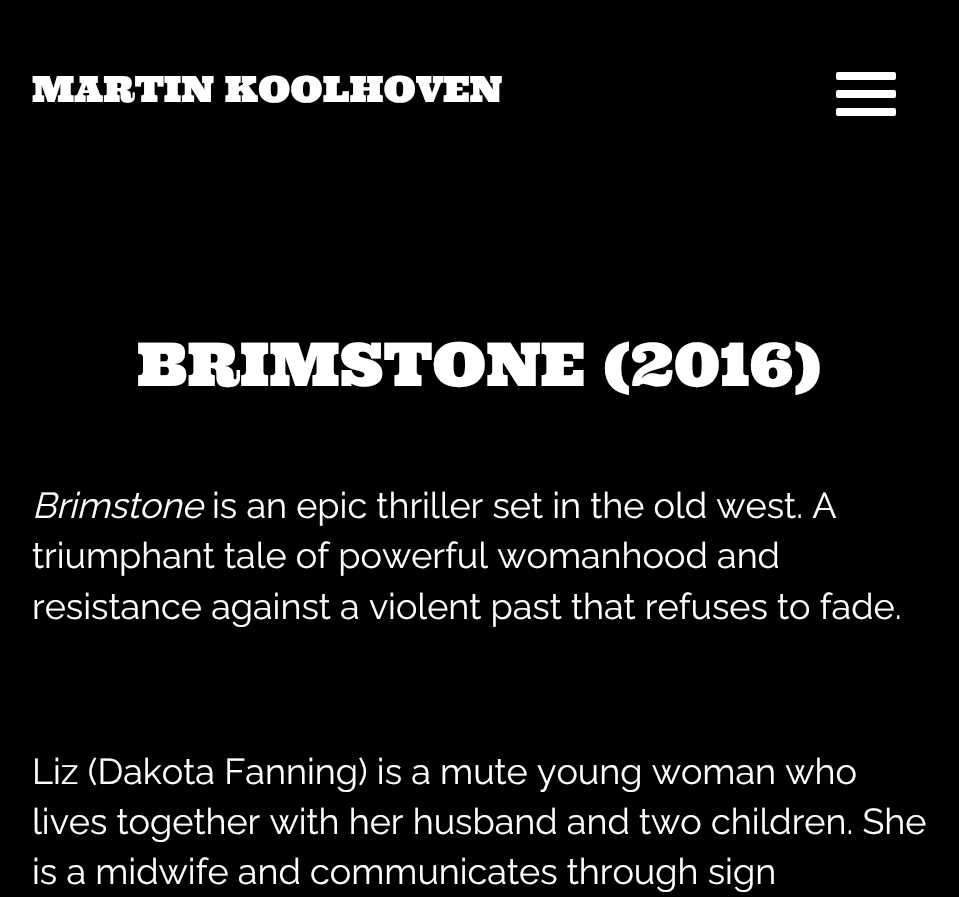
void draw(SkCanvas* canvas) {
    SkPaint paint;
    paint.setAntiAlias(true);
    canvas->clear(0xFF000000);
    SkFont font1(fontMgr->matchFamilyStyle("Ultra", SkFontStyle::Normal()), 36);
    font1.setSubpixel(true);
    paint.setColor(0xFFFFFFFF);
    canvas->drawString("MARTIN KOOLHOVEN", 32, 102, font1, paint);
    canvas->drawRoundRect(SkRect::MakeXYWH(836, 72, 60, 8), 2, 2, paint);
    canvas->drawRoundRect(SkRect::MakeXYWH(836, 90, 60, 8), 2, 2, paint);
    canvas->drawRoundRect(SkRect::MakeXYWH(836, 108, 60, 8), 2, 2, paint);
    SkFont font2(fontMgr->matchFamilyStyle("Ultra", SkFontStyle::Normal()), 60);
    font2.setSubpixel(true);
    canvas->drawString("BRIMSTONE (2016)", 137, 386, font2, paint);
    SkFont font3(fontMgr->matchFamilyStyle("Raleway", SkFontStyle::Italic()), 36);
    font3.setSubpixel(true);
    canvas->drawString("Brimstone", 32, 518, font3, paint);
    SkFont font4(fontMgr->matchFamilyStyle("Raleway", SkFontStyle::Normal()), 36);
    font4.setSubpixel(true);
    canvas->drawString("is an epic thriller set in the old west. A", 212, 518, font4, paint);
    canvas->drawString("triumphant tale of powerful womanhood and", 32, 568, font4, paint);
    canvas->drawString("resistance against a violent past that refuses to fade.", 32, 619, font4, paint);
    canvas->drawString("Liz (Dakota Fanning) is a mute young woman who", 32, 784, font4, paint);
    canvas->drawString("lives together with her husband and two children. She", 32, 834, font4, paint);
    canvas->drawString("is a midwife and communicates through sign", 32, 884, font4, paint);
}
